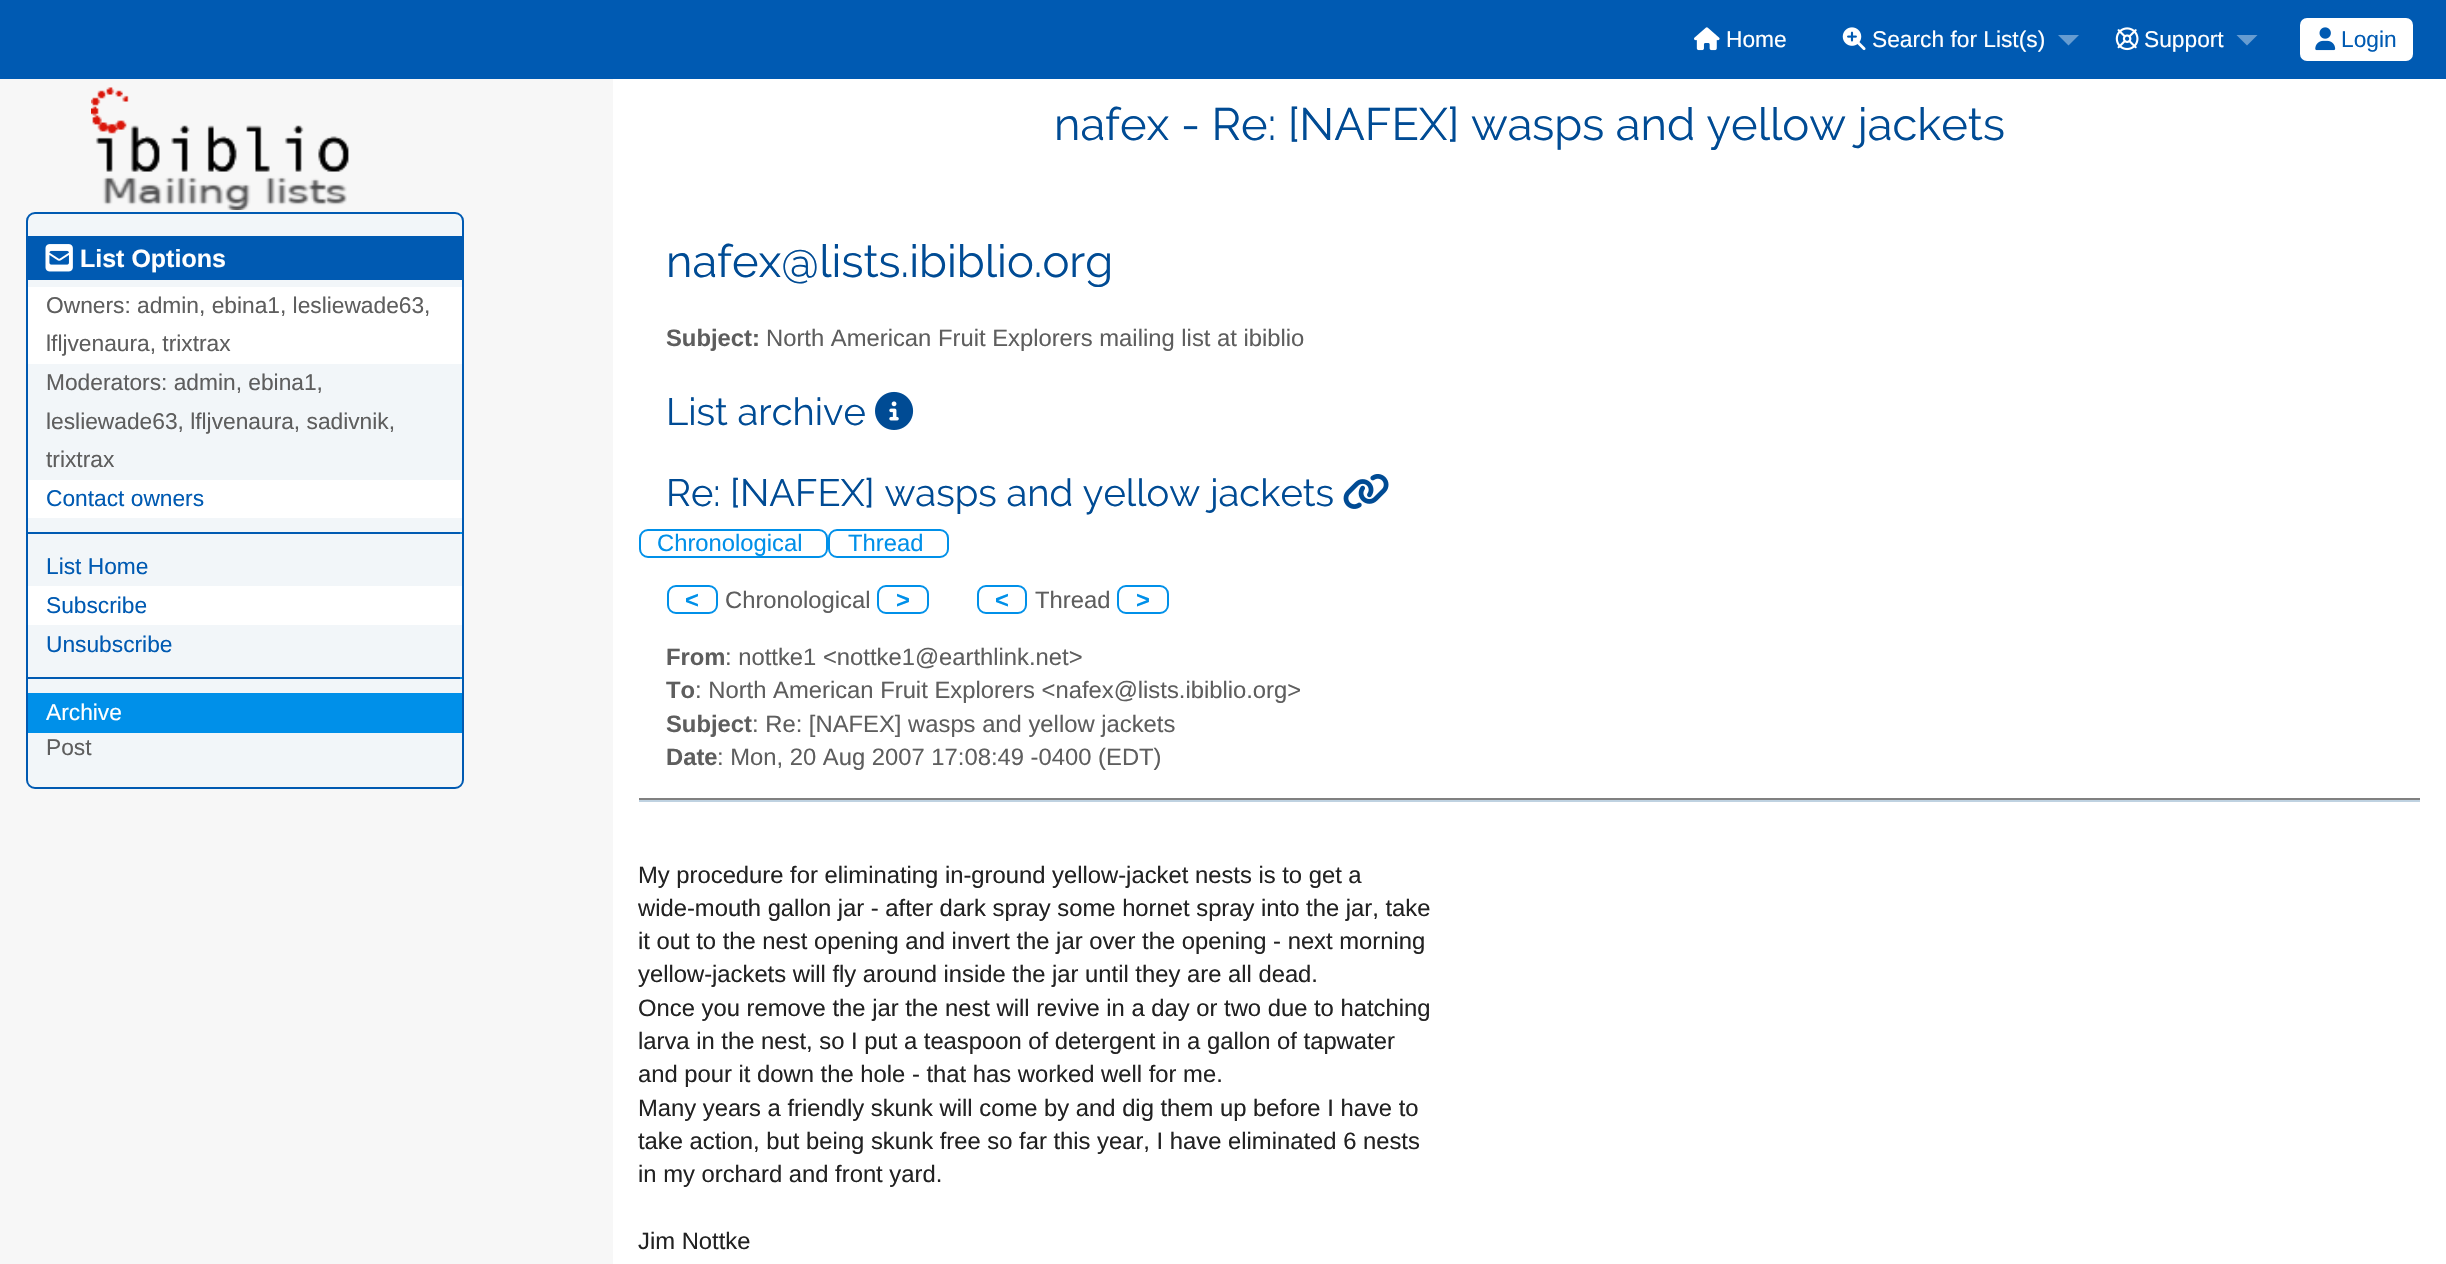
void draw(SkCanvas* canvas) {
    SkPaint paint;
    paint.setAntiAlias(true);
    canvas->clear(0xFFF7F7F7);
    paint.setColor(0xFF005AB2);
    canvas->drawRect(SkRect::MakeXYWH(0, 0, 2446, 79), paint);
    canvas->drawImageRect(SkImages::DeferredFromEncodedData(SkData::MakeFromFileName("img1.png")), SkRect::MakeXYWH(1694, 27, 26, 24), SkSamplingOptions());
    SkFont font1(fontMgr->matchFamilyStyle("Liberation Sans", SkFontStyle::Normal()), 22.75f);
    font1.setSubpixel(true);
    paint.setColor(0xFFFFFFFF);
    canvas->drawString("Home", 1726, 47, font1, paint);
    canvas->drawImageRect(SkImages::DeferredFromEncodedData(SkData::MakeFromFileName("img2.png")), SkRect::MakeXYWH(1842, 27, 24, 24), SkSamplingOptions());
    canvas->drawString("Search for List(s)", 1872, 47, font1, paint);
    paint.setColor(0xFF669CD1);
    canvas->drawPath(SkPathBuilder().moveTo(2058, 35).lineTo(2079, 35).lineTo(2068.5f, 45.5f).close().detach(), paint);
    canvas->drawImageRect(SkImages::DeferredFromEncodedData(SkData::MakeFromFileName("img3.png")), SkRect::MakeXYWH(2115, 27, 24, 24), SkSamplingOptions());
    paint.setColor(0xFFFFFFFF);
    canvas->drawString("Support", 2144, 47, font1, paint);
    paint.setColor(0xFF669CD1);
    canvas->drawPath(SkPathBuilder().moveTo(2236.5f, 35).lineTo(2257.5f, 35).lineTo(2247, 45.5f).close().detach(), paint);
    paint.setColor(0xFFFFFFFF);
    canvas->drawRoundRect(SkRect::MakeXYWH(2300, 18, 113, 43), 7, 7, paint);
    canvas->drawImageRect(SkImages::DeferredFromEncodedData(SkData::MakeFromFileName("img4.png")), SkRect::MakeXYWH(2315, 27, 21, 24), SkSamplingOptions());
    paint.setColor(0xFF005AB2);
    canvas->drawString("Login", 2341, 47, font1, paint);
    canvas->drawImageRect(SkImages::DeferredFromEncodedData(SkData::MakeFromFileName("img5.png")), SkRect::MakeXYWH(91, 87, 258, 123), SkSamplingOptions());
    paint.setColor(0xFFFFFFFF);
    canvas->drawRect(SkRect::MakeXYWH(613, 79, 1833, 1185), paint);
    SkFont font2(fontMgr->matchFamilyStyle("Raleway", SkFontStyle::Normal()), 45.25f);
    font2.setSubpixel(true);
    paint.setColor(0xFF004B94);
    canvas->drawString("nafex - Re: [NAFEX] wasps and yellow jackets", 1054, 140, font2, paint);
    paint.setColor(0xFFF2F6F9);
    canvas->drawRoundRect(SkRect::MakeXYWH(27, 213, 436, 575), 8, 8, paint);
    paint.setStyle(SkPaint::kStroke_Style);
    paint.setStrokeWidth(2);
    paint.setColor(0xFF005AB2);
    canvas->drawRoundRect(SkRect::MakeXYWH(27, 213, 436, 575), 8, 8, paint);
    paint.setStyle(SkPaint::kFill_Style);
    canvas->drawRect(SkRect::MakeXYWH(28, 236, 434, 44), paint);
    canvas->drawImageRect(SkImages::DeferredFromEncodedData(SkData::MakeFromFileName("img6.png")), SkRect::MakeXYWH(45, 244, 28, 28), SkSamplingOptions());
    SkFont font3(fontMgr->matchFamilyStyle("Liberation Sans", SkFontStyle::Bold()), 25);
    font3.setSubpixel(true);
    paint.setColor(0xFFFFFFFF);
    canvas->drawString("List Options", 80, 267, font3, paint);
    canvas->drawRect(SkRect::MakeXYWH(28, 287, 434, 77), paint);
    paint.setColor(0xFF5E5E5E);
    canvas->drawString("Owners: admin, ebina1, lesliewade63,", 46, 313, font1, paint);
    canvas->drawString("lfljvenaura, trixtrax", 46, 351, font1, paint);
    canvas->drawString("Moderators: admin, ebina1,", 46, 390, font1, paint);
    canvas->drawString("lesliewade63, lfljvenaura, sadivnik,", 46, 429, font1, paint);
    canvas->drawString("trixtrax", 46, 467, font1, paint);
    paint.setColor(0xFFFFFFFF);
    canvas->drawRect(SkRect::MakeXYWH(28, 480, 434, 38), paint);
    paint.setColor(0xFF005AB2);
    canvas->drawString("Contact owners", 46, 506, font1, paint);
    canvas->drawRect(SkRect::MakeXYWH(28, 532, 434, 2), paint);
    paint.setColor(0xFF0090E9);
    canvas->drawRect(SkRect::MakeXYWH(460, 532, 2, 2), paint);
    paint.setColor(0xFF005AB2);
    canvas->drawString("List Home", 46, 574, font1, paint);
    paint.setColor(0xFFFFFFFF);
    canvas->drawRect(SkRect::MakeXYWH(28, 586, 434, 39), paint);
    paint.setColor(0xFF005AB2);
    canvas->drawString("Subscribe", 46, 613, font1, paint);
    canvas->drawString("Unsubscribe", 46, 652, font1, paint);
    canvas->drawRect(SkRect::MakeXYWH(28, 677, 434, 2), paint);
    paint.setColor(0xFF0090E9);
    canvas->drawRect(SkRect::MakeXYWH(460, 677, 2, 2), paint);
    canvas->drawRect(SkRect::MakeXYWH(28, 693, 434, 40), paint);
    paint.setColor(0xFFFFFFFF);
    canvas->drawString("Archive", 46, 720, font1, paint);
    paint.setColor(0xFF5E5E5E);
    canvas->drawString("Post", 46, 755, font1, paint);
    paint.setColor(0xFF004B94);
    canvas->drawString("nafex@lists.ibiblio.org", 666, 277, font2, paint);
    SkFont font4(fontMgr->matchFamilyStyle("Liberation Sans", SkFontStyle::Bold()), 23.8f);
    font4.setSubpixel(true);
    paint.setColor(0xFF5E5E5E);
    canvas->drawString("Subject:", 666, 346, font4, paint);
    SkFont font5(fontMgr->matchFamilyStyle("Liberation Sans", SkFontStyle::Normal()), 23.8f);
    font5.setSubpixel(true);
    canvas->drawString("North American Fruit Explorers mailing list at ibiblio", 766, 346, font5, paint);
    SkFont font6(fontMgr->matchFamilyStyle("Raleway", SkFontStyle::Normal()), 38.1f);
    font6.setSubpixel(true);
    paint.setColor(0xFF004B94);
    canvas->drawString("List archive", 666, 425, font6, paint);
    canvas->drawImageRect(SkImages::DeferredFromEncodedData(SkData::MakeFromFileName("img7.png")), SkRect::MakeXYWH(875, 391, 39, 39), SkSamplingOptions());
    canvas->drawString("Re: [NAFEX] wasps and yellow jackets", 666, 506, font6, paint);
    canvas->drawImageRect(SkImages::DeferredFromEncodedData(SkData::MakeFromFileName("img8.png")), SkRect::MakeXYWH(1343, 474, 46, 35), SkSamplingOptions());
    paint.setStyle(SkPaint::kStroke_Style);
    paint.setColor(0xFF0090E9);
    canvas->drawRoundRect(SkRect::MakeXYWH(640, 530, 187, 27), 8, 8, paint);
    paint.setStyle(SkPaint::kFill_Style);
    canvas->drawString("Chronological", 657, 551, font5, paint);
    paint.setStyle(SkPaint::kStroke_Style);
    canvas->drawRoundRect(SkRect::MakeXYWH(829, 530, 119, 27), 8, 8, paint);
    paint.setStyle(SkPaint::kFill_Style);
    canvas->drawString("Thread", 848, 551, font5, paint);
    paint.setStyle(SkPaint::kStroke_Style);
    canvas->drawRoundRect(SkRect::MakeXYWH(668, 586, 49, 27), 8, 8, paint);
    paint.setStyle(SkPaint::kFill_Style);
    canvas->drawString("<", 685, 608, font4, paint);
    paint.setColor(0xFF5E5E5E);
    canvas->drawString("Chronological", 725, 608, font5, paint);
    paint.setStyle(SkPaint::kStroke_Style);
    paint.setColor(0xFF0090E9);
    canvas->drawRoundRect(SkRect::MakeXYWH(878, 586, 50, 27), 8, 8, paint);
    paint.setStyle(SkPaint::kFill_Style);
    canvas->drawString(">", 896, 608, font4, paint);
    paint.setStyle(SkPaint::kStroke_Style);
    canvas->drawRoundRect(SkRect::MakeXYWH(978, 586, 48, 27), 8, 8, paint);
    paint.setStyle(SkPaint::kFill_Style);
    canvas->drawString("<", 995, 608, font4, paint);
    paint.setColor(0xFF5E5E5E);
    canvas->drawString("Thread", 1035, 608, font5, paint);
    paint.setStyle(SkPaint::kStroke_Style);
    paint.setColor(0xFF0090E9);
    canvas->drawRoundRect(SkRect::MakeXYWH(1118, 586, 50, 27), 8, 8, paint);
    paint.setStyle(SkPaint::kFill_Style);
    canvas->drawString(">", 1136, 608, font4, paint);
    paint.setColor(0xFF5E5E5E);
    canvas->drawString("From", 666, 665, font4, paint);
    canvas->drawString(": nottke1 <nottke1@earthlink.net>", 725, 665, font5, paint);
    canvas->drawString("To", 666, 698, font4, paint);
    canvas->drawString(": North American Fruit Explorers <nafex@lists.ibiblio.org>", 695, 698, font5, paint);
    canvas->drawString("Subject", 666, 732, font4, paint);
    canvas->drawString(": Re: [NAFEX] wasps and yellow jackets", 752, 732, font5, paint);
    canvas->drawString("Date", 666, 765, font4, paint);
    canvas->drawString(": Mon, 20 Aug 2007 17:08:49 -0400 (EDT)", 717, 765, font5, paint);
    paint.setColor(0xFF808080);
    canvas->drawRect(SkRect::MakeXYWH(639, 798, 1781, 2), paint);
    paint.setColor(0xFFBFD2E1);
    canvas->drawRect(SkRect::MakeXYWH(639, 800, 1781, 2), paint);
    paint.setColor(0xFF222222);
    canvas->drawString("My procedure for eliminating in-ground yellow-jacket nests is to get a", 638, 883, font5, paint);
    canvas->drawString("wide-mouth gallon jar - after dark spray some hornet spray into the jar, take", 638, 916, font5, paint);
    canvas->drawString("it out to the nest opening and invert the jar over the opening - next morning", 638, 949, font5, paint);
    canvas->drawString("yellow-jackets will fly around inside the jar until they are all dead.", 638, 982, font5, paint);
    canvas->drawString("Once you remove the jar the nest will revive in a day or two due to hatching", 638, 1016, font5, paint);
    canvas->drawString("larva in the nest, so I put a teaspoon of detergent in a gallon of tapwater", 638, 1049, font5, paint);
    canvas->drawString("and pour it down the hole - that has worked well for me.", 638, 1082, font5, paint);
    canvas->drawString("Many years a friendly skunk will come by and dig them up before I have to", 638, 1116, font5, paint);
    canvas->drawString("take action, but being skunk free so far this year, I have eliminated 6 nests", 638, 1149, font5, paint);
    canvas->drawString("in my orchard and front yard.", 638, 1182, font5, paint);
    canvas->drawString("Jim Nottke", 638, 1249, font5, paint);
}
